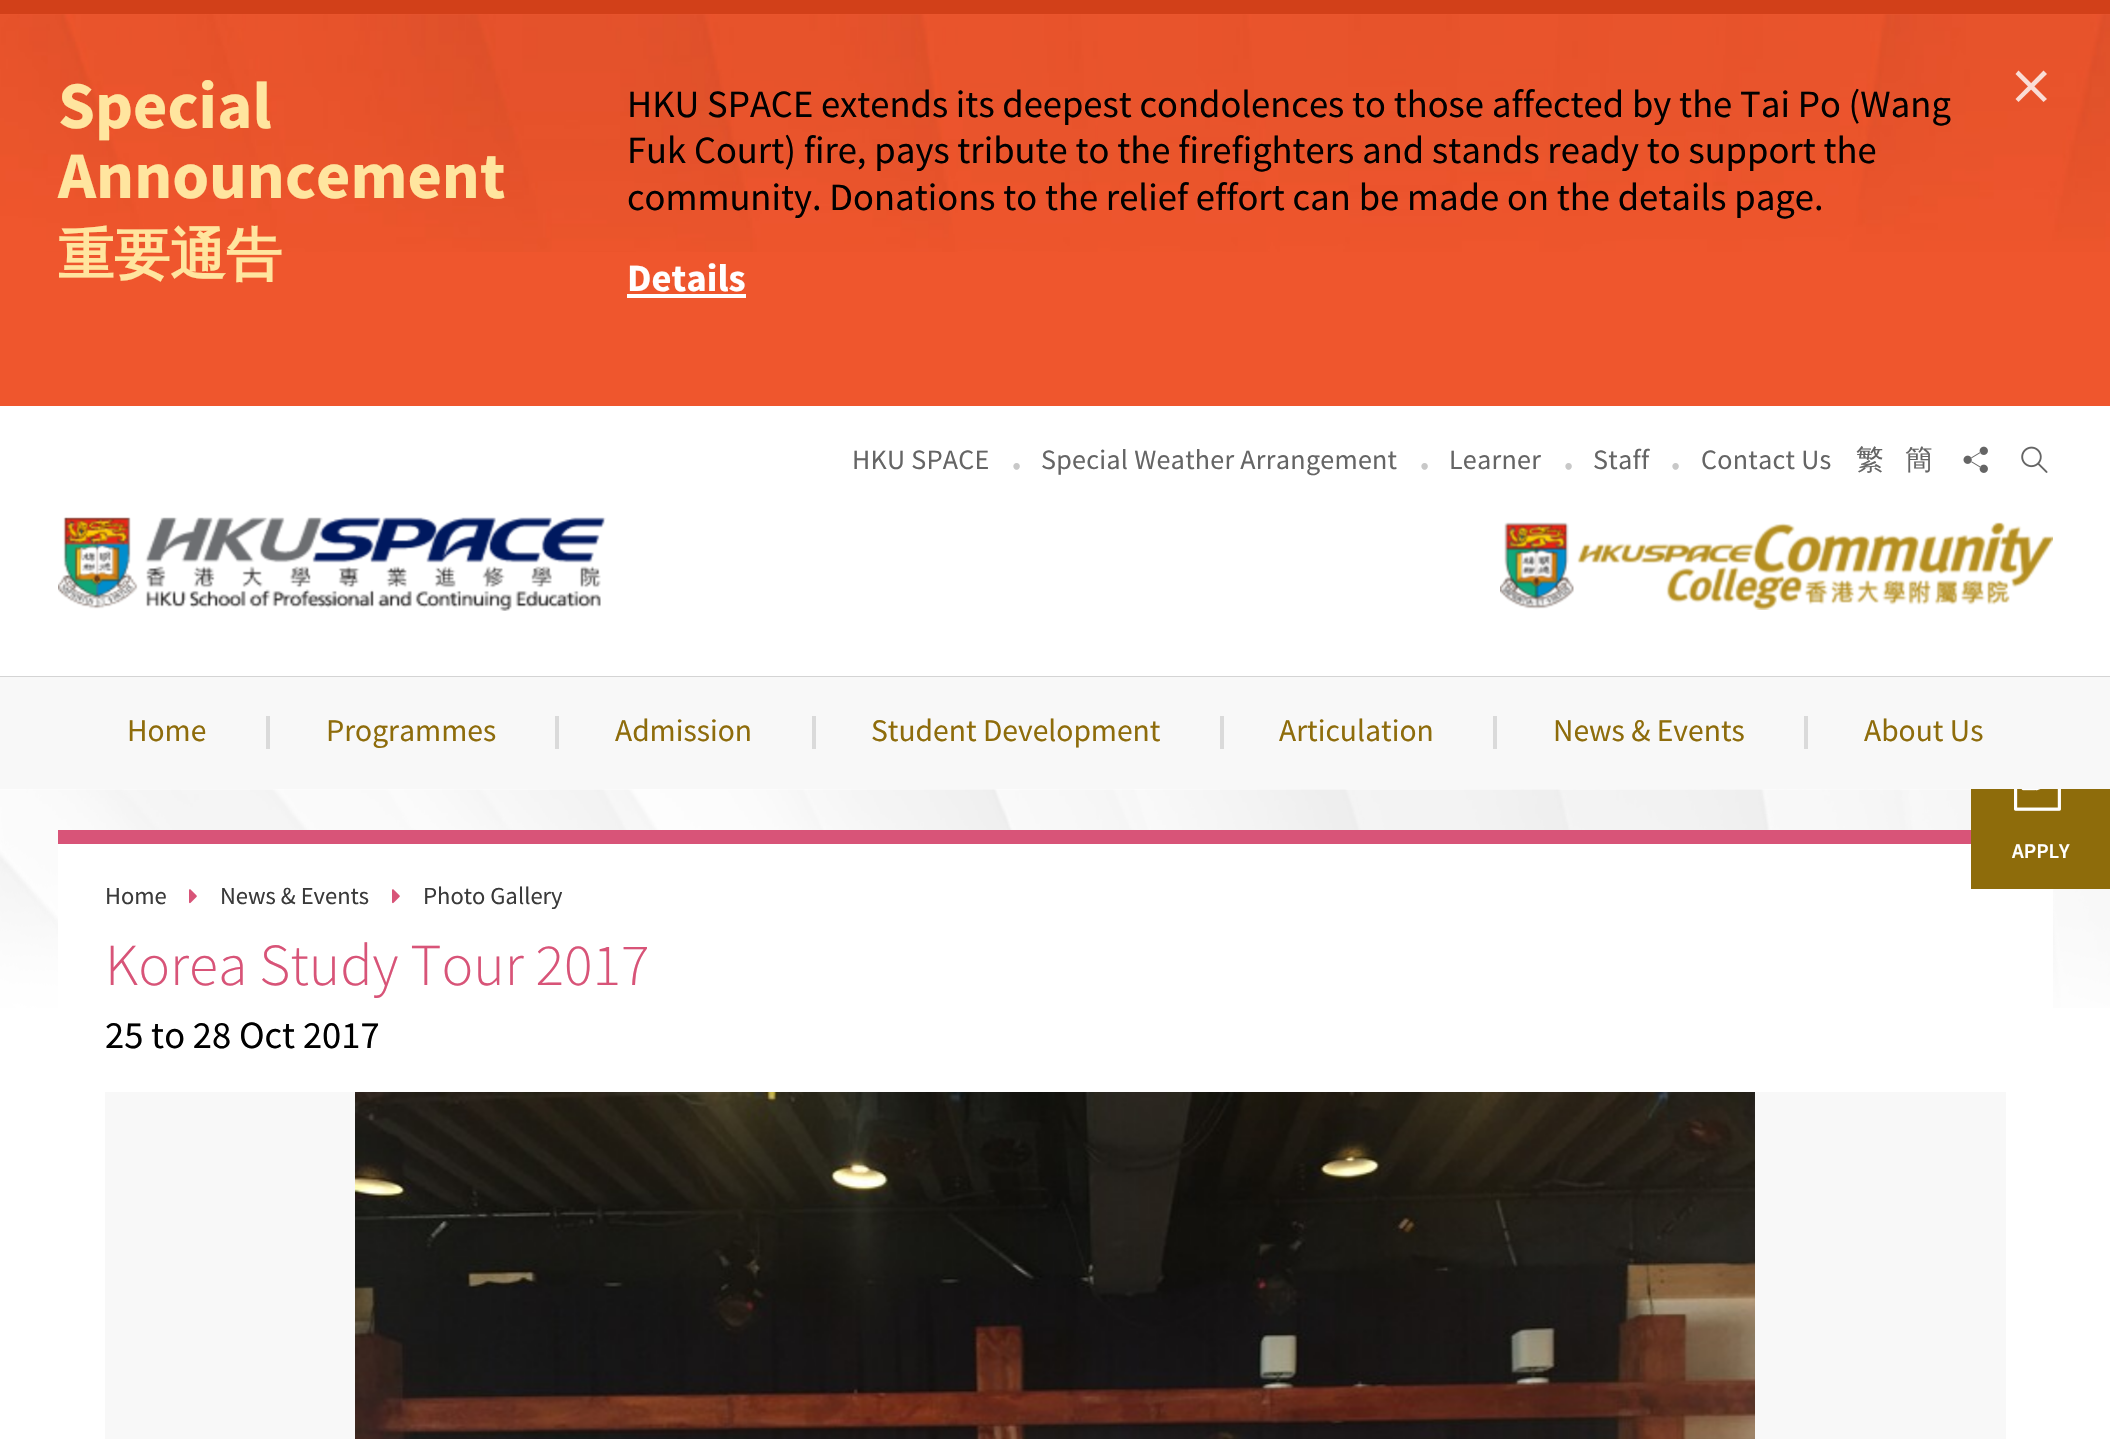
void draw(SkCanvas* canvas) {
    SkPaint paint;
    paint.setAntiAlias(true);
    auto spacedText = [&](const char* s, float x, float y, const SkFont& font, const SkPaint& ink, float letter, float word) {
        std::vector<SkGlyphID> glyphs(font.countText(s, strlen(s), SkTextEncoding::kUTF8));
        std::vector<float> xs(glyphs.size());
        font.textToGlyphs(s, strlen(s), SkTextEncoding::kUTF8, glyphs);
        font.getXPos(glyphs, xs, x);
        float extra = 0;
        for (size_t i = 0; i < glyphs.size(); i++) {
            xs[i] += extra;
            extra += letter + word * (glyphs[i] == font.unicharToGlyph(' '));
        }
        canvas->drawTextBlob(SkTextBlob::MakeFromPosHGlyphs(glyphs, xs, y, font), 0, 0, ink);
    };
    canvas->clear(0xFFFFFFFF);
    paint.setColor(0xFFEF562D);
    canvas->drawRect(SkRect::MakeXYWH(0, 14, 2110, 392), paint);
    canvas->drawImageRect(SkImages::DeferredFromEncodedData(SkData::MakeFromFileName("img1.png")), SkRect::MakeXYWH(0, 14, 2110, 238), SkSamplingOptions());
    paint.setColor(0xFFD24019);
    canvas->drawRect(SkRect::MakeXYWH(0, 0, 2110, 14), paint);
    SkFont font1(fontMgr->matchFamilyStyle("Source Sans Pro", SkFontStyle::Bold()), 66.5f);
    font1.setSubpixel(true);
    paint.setColor(0xFFFFE59F);
    canvas->drawString("Special", 58, 128, font1, paint);
    canvas->drawString("Announcement", 58, 198, font1, paint);
    SkFont font2(fontMgr->matchFamilyStyle("WenQuanYi Zen Hei", SkFontStyle::Bold()), 56);
    font2.setSubpixel(true);
    canvas->drawString("重要通告", 58, 274, font2, paint);
    SkFont font3(fontMgr->matchFamilyStyle("Source Sans Pro", SkFontStyle::Normal()), 38.55f);
    font3.setSubpixel(true);
    paint.setColor(0xFF000000);
    canvas->drawString("HKU SPACE extends its deepest condolences to those affected by the Tai Po (Wang", 627, 117, font3, paint);
    canvas->drawString("Fuk Court) fire, pays tribute to the firefighters and stands ready to support the", 627, 163, font3, paint);
    canvas->drawString("community. Donations to the relief effort can be made on the details page.", 627, 210, font3, paint);
    SkFont font4(fontMgr->matchFamilyStyle("Source Sans Pro", SkFontStyle::Bold()), 38.55f);
    font4.setSubpixel(true);
    paint.setColor(0xFFFFFFFF);
    canvas->drawString("Details", 627, 291, font4, paint);
    canvas->drawRect(SkRect::MakeXYWH(627, 294, 119, 4), paint);
    paint.setColor(0xFFFADDD5);
    canvas->drawPath(SkPathBuilder().moveTo(2043.5f, 70.5f).lineTo(2047, 74).lineTo(2018.5f, 102).lineTo(2015.5f, 99).close().detach(), paint);
    canvas->drawPath(SkPathBuilder().moveTo(2015.5f, 74).lineTo(2018.5f, 70.5f).lineTo(2047, 99).lineTo(2043.5f, 102).close().detach(), paint);
    paint.setColor(0xFFD4D4D4);
    canvas->drawRect(SkRect::MakeXYWH(0, 676, 2110, 1), paint);
    SkFont font5(fontMgr->matchFamilyStyle("Source Sans Pro", SkFontStyle::Normal()), 28);
    font5.setSubpixel(true);
    paint.setColor(0xFF656565);
    spacedText("HKU SPACE", 852, 469, font5, paint, 0.25f, 0);
    SkFont font6(fontMgr->matchFamilyStyle("Source Sans Pro", SkFontStyle::Normal()), 53);
    font6.setSubpixel(true);
    paint.setColor(0xFFC8C8C8);
    spacedText(".", 1010, 469, font6, paint, 0.25f, 0);
    paint.setColor(0xFF656565);
    spacedText("Special Weather Arrangement", 1041, 469, font5, paint, 0.25f, 0);
    paint.setColor(0xFFC8C8C8);
    spacedText(".", 1418, 469, font6, paint, 0.25f, 0);
    paint.setColor(0xFF656565);
    spacedText("Learner", 1449, 469, font5, paint, 0.25f, 0);
    paint.setColor(0xFFC8C8C8);
    spacedText(".", 1562, 469, font6, paint, 0.25f, 0);
    paint.setColor(0xFF656565);
    spacedText("Staff", 1593, 469, font5, paint, 0.25f, 0);
    paint.setColor(0xFFC8C8C8);
    spacedText(".", 1669, 469, font6, paint, 0.25f, 0);
    paint.setColor(0xFF656565);
    spacedText("Contact Us", 1701, 469, font5, paint, 0.25f, 0);
    SkFont font7(fontMgr->matchFamilyStyle("WenQuanYi Zen Hei", SkFontStyle(500, SkFontStyle::kNormal_Width, SkFontStyle::kUpright_Slant)), 28);
    font7.setSubpixel(true);
    canvas->drawString("繁", 1856, 469, font7, paint);
    canvas->drawString("簡", 1905, 469, font7, paint);
    canvas->drawImageRect(SkImages::DeferredFromEncodedData(SkData::MakeFromFileName("img2.png")), SkRect::MakeXYWH(1963, 446, 25, 27), SkSamplingOptions());
    canvas->drawImageRect(SkImages::DeferredFromEncodedData(SkData::MakeFromFileName("img3.png")), SkRect::MakeXYWH(2021, 446, 27, 27), SkSamplingOptions());
    canvas->drawImageRect(SkImages::DeferredFromEncodedData(SkData::MakeFromFileName("img4.png")), SkRect::MakeXYWH(58, 517, 548, 94), SkSamplingOptions());
    canvas->drawImageRect(SkImages::DeferredFromEncodedData(SkData::MakeFromFileName("img5.png")), SkRect::MakeXYWH(1500, 522, 553, 88), SkSamplingOptions());
    paint.setColor(0xFFF8F8F8);
    canvas->drawRect(SkRect::MakeXYWH(0, 677, 2110, 112), paint);
    SkFont font8(fontMgr->matchFamilyStyle("Source Sans Pro", SkFontStyle::Normal()), 31.5f);
    font8.setSubpixel(true);
    paint.setColor(0xFF8E6C0B);
    canvas->drawString("Home", 127, 741, font8, paint);
    paint.setColor(0xFFDADADA);
    canvas->drawRect(SkRect::MakeXYWH(266, 716, 4, 33), paint);
    paint.setColor(0xFF8E6C0B);
    canvas->drawString("Programmes", 326, 741, font8, paint);
    paint.setColor(0xFFDADADA);
    canvas->drawRect(SkRect::MakeXYWH(555, 716, 4, 33), paint);
    paint.setColor(0xFF8E6C0B);
    canvas->drawString("Admission", 615, 741, font8, paint);
    paint.setColor(0xFFDADADA);
    canvas->drawRect(SkRect::MakeXYWH(812, 716, 4, 33), paint);
    paint.setColor(0xFF8E6C0B);
    canvas->drawString("Student Development", 871, 741, font8, paint);
    paint.setColor(0xFFDADADA);
    canvas->drawRect(SkRect::MakeXYWH(1220, 716, 4, 33), paint);
    paint.setColor(0xFF8E6C0B);
    canvas->drawString("Articulation", 1279, 741, font8, paint);
    paint.setColor(0xFFDADADA);
    canvas->drawRect(SkRect::MakeXYWH(1493, 716, 4, 33), paint);
    paint.setColor(0xFF8E6C0B);
    canvas->drawString("News & Events", 1553, 741, font8, paint);
    paint.setColor(0xFFDADADA);
    canvas->drawRect(SkRect::MakeXYWH(1804, 716, 4, 33), paint);
    paint.setColor(0xFF8E6C0B);
    canvas->drawString("About Us", 1864, 741, font8, paint);
    canvas->drawImageRect(SkImages::DeferredFromEncodedData(SkData::MakeFromFileName("img7.png")), SkRect::MakeXYWH(0, 789, 2110, 219), SkSamplingOptions());
    {
        const SkColor colors[] = {0xFFFFFFFF, 0x00FFFFFF};
        const float stops[] = {0, 1};
        const SkPoint ends[] = {{1055, 843}, {1055, 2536}};
        paint.setShader(SkGradientShader::MakeLinear(ends, colors, stops, 2, SkTileMode::kClamp));
        paint.setAlpha(255);
    }
    canvas->drawRect(SkRect::MakeXYWH(58, 844, 1995, 164), paint);
    paint.setShader(nullptr);
    paint.setColor(0xFF8E6C0B);
    canvas->drawRect(SkRect::MakeXYWH(1971, 789, 139, 100), paint);
    canvas->drawImageRect(SkImages::DeferredFromEncodedData(SkData::MakeFromFileName("img6.png")), SkRect::MakeXYWH(2014, 789, 47, 22), SkSamplingOptions());
    SkFont font9(fontMgr->matchFamilyStyle("Source Sans Pro", SkFontStyle(600, SkFontStyle::kNormal_Width, SkFontStyle::kUpright_Slant)), 21);
    font9.setSubpixel(true);
    paint.setColor(0xFFFFFFFF);
    canvas->drawString("APPLY", 2012, 858, font9, paint);
    paint.setColor(0xFFD85478);
    canvas->drawRect(SkRect::MakeXYWH(58, 830, 1913, 14), paint);
    SkFont font10(fontMgr->matchFamilyStyle("Source Sans Pro", SkFontStyle::Normal()), 24.5f);
    font10.setSubpixel(true);
    paint.setColor(0xFF3A3A3A);
    canvas->drawString("Home", 105, 904, font10, paint);
    canvas->drawImageRect(SkImages::DeferredFromEncodedData(SkData::MakeFromFileName("img8.png")), SkRect::MakeXYWH(189, 889, 8, 15), SkSamplingOptions());
    canvas->drawString("News & Events", 220, 904, font10, paint);
    canvas->drawImageRect(SkImages::DeferredFromEncodedData(SkData::MakeFromFileName("img9.png")), SkRect::MakeXYWH(392, 889, 8, 15), SkSamplingOptions());
    canvas->drawString("Photo Gallery", 423, 904, font10, paint);
    SkFont font11(fontMgr->matchFamilyStyle("Source Sans Pro", SkFontStyle(300, SkFontStyle::kNormal_Width, SkFontStyle::kUpright_Slant)), 59.5f);
    font11.setSubpixel(true);
    paint.setColor(0xFFD85478);
    canvas->drawString("Korea Study Tour 2017", 105, 985, font11, paint);
    paint.setColor(0xFF000000);
    canvas->drawString("25 to 28 Oct 2017", 105, 1048, font3, paint);
    paint.setColor(0xFFF8F8F8);
    canvas->drawRect(SkRect::MakeXYWH(105, 1092, 1901, 347), paint);
    canvas->drawImageRect(SkImages::DeferredFromEncodedData(SkData::MakeFromFileName("img10.png")), SkRect::MakeXYWH(355, 1092, 1400, 347), SkSamplingOptions());
}
